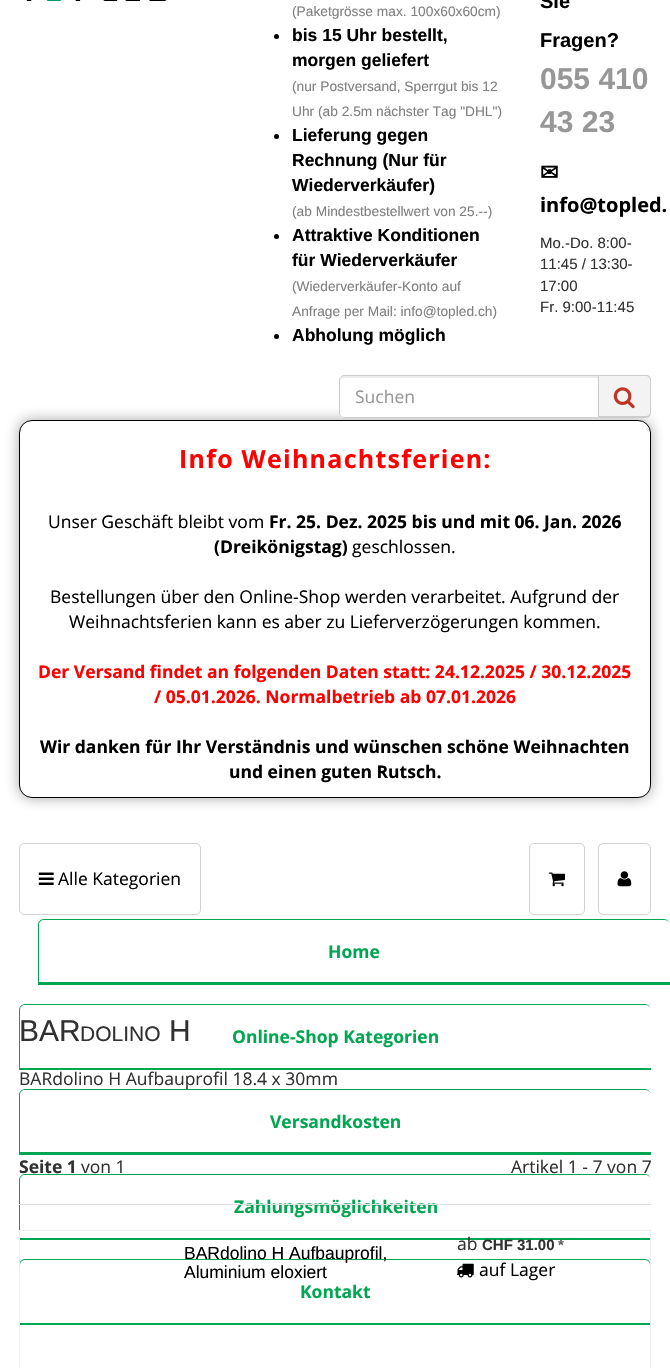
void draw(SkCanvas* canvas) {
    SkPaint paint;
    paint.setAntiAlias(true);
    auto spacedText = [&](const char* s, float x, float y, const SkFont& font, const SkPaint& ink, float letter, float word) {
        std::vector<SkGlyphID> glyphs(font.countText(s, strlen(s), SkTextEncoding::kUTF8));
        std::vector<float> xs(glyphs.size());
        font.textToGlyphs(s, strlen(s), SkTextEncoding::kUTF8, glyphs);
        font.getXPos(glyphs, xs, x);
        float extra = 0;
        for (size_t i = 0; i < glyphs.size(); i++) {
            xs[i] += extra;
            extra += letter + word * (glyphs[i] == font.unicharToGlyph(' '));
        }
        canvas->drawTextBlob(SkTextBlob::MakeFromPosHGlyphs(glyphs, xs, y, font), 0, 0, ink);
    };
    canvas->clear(0xFFFFFFFF);
    canvas->drawImageRect(SkImages::DeferredFromEncodedData(SkData::MakeFromFileName("img1.png")), SkRect::MakeXYWH(26, 0, 141, 1), SkSamplingOptions());
    SkFont font1(fontMgr->matchFamilyStyle("Liberation Sans", SkFontStyle::Normal()), 13.75f);
    font1.setSubpixel(true);
    paint.setColor(0xFF808080);
    canvas->drawString("(Paketgrösse max. 100x60x60cm)", 292, 16, font1, paint);
    paint.setColor(0xFF000000);
    canvas->drawCircle(276.5f, 36.5f, 2.5f, paint);
    SkFont font2(fontMgr->matchFamilyStyle("Liberation Sans", SkFontStyle::Bold()), 17.5f);
    font2.setSubpixel(true);
    canvas->drawString("bis 15 Uhr bestellt,", 292, 41, font2, paint);
    canvas->drawString("morgen geliefert", 292, 66, font2, paint);
    paint.setColor(0xFF808080);
    canvas->drawString("(nur Postversand, Sperrgut bis 12", 292, 91, font1, paint);
    canvas->drawString("Uhr (ab 2.5m nächster Tag \"DHL\")", 292, 116, font1, paint);
    paint.setColor(0xFF000000);
    canvas->drawCircle(276.5f, 136.5f, 2.5f, paint);
    canvas->drawString("Lieferung gegen", 292, 141, font2, paint);
    canvas->drawString("Rechnung (Nur für", 292, 166, font2, paint);
    canvas->drawString("Wiederverkäufer)", 292, 191, font2, paint);
    paint.setColor(0xFF808080);
    canvas->drawString("(ab Mindestbestellwert von 25.--)", 292, 216, font1, paint);
    paint.setColor(0xFF000000);
    canvas->drawCircle(276.5f, 236.5f, 2.5f, paint);
    canvas->drawString("Attraktive Konditionen", 292, 241, font2, paint);
    canvas->drawString("für Wiederverkäufer", 292, 266, font2, paint);
    paint.setColor(0xFF808080);
    canvas->drawString("(Wiederverkäufer-Konto auf", 292, 291, font1, paint);
    canvas->drawString("Anfrage per Mail: info@topled.ch)", 292, 316, font1, paint);
    paint.setColor(0xFF000000);
    canvas->drawCircle(276.5f, 336.5f, 2.5f, paint);
    canvas->drawString("Abholung möglich", 292, 341, font2, paint);
    SkFont font3(fontMgr->matchFamilyStyle("Liberation Sans", SkFontStyle::Bold()), 20);
    font3.setSubpixel(true);
    canvas->drawString("Sie", 540, 8, font3, paint);
    canvas->drawString("Fragen?", 540, 47, font3, paint);
    SkFont font4(fontMgr->matchFamilyStyle("Liberation Sans", SkFontStyle::Bold()), 30);
    font4.setSubpixel(true);
    paint.setColor(0xFF979797);
    canvas->drawString("055 410", 540, 89, font4, paint);
    canvas->drawString("43 23", 540, 132, font4, paint);
    SkFont font5(fontMgr->matchFamilyStyle("DejaVu Sans", SkFontStyle::Bold()), 22);
    font5.setSubpixel(true);
    paint.setColor(0xFF000000);
    canvas->drawString("✉", 540, 180, font5, paint);
    SkFont font6(fontMgr->matchFamilyStyle("Open Sans", SkFontStyle::Bold()), 20);
    font6.setSubpixel(true);
    canvas->drawString("info@topled.", 540, 212, font6, paint);
    SkFont font7(fontMgr->matchFamilyStyle("Liberation Sans", SkFontStyle::Normal()), 15);
    font7.setSubpixel(true);
    paint.setColor(0xFF313131);
    canvas->drawString("Mo.-Do. 8:00-", 540, 248, font7, paint);
    canvas->drawString("11:45 / 13:30-", 540, 269, font7, paint);
    canvas->drawString("17:00", 540, 291, font7, paint);
    canvas->drawString("Fr. 9:00-11:45", 540, 312, font7, paint);
    paint.setColor(0x66212121);
    paint.setMaskFilter(SkMaskFilter::MakeBlur(kNormal_SkBlurStyle, 7));
    canvas->drawRoundRect(SkRect::MakeXYWH(19, 420, 632, 378), 13, 13, paint);
    paint.setMaskFilter(nullptr);
    paint.setColor(0xFFFFFFFF);
    canvas->drawPath(SkPathBuilder().moveTo(344, 375).lineTo(599, 375).lineTo(599, 418).lineTo(344, 418).cubicTo(341, 418, 339, 416, 339, 413).lineTo(339, 380).cubicTo(339, 377, 341, 375, 344, 375).close().detach(), paint);
    paint.setColor(0xFFECECEC);
    canvas->drawPath(SkPathBuilder().moveTo(344, 378).lineTo(598, 378).lineTo(598, 376).lineTo(344, 376).cubicTo(342, 376, 340, 378, 340, 380).lineTo(340, 381).cubicTo(340, 379, 342, 378, 344, 378).close().detach(), paint);
    paint.setStyle(SkPaint::kStroke_Style);
    paint.setStrokeWidth(1);
    paint.setColor(0xFFCCCCCC);
    canvas->drawPath(SkPathBuilder().moveTo(344, 375.5f).lineTo(598.5f, 375.5f).lineTo(598.5f, 417.5f).lineTo(344, 417.5f).cubicTo(341.5f, 417.5f, 339.5f, 415.5f, 339.5f, 413).lineTo(339.5f, 380).cubicTo(339.5f, 377.5f, 341.5f, 375.5f, 344, 375.5f).close().detach(), paint);
    SkFont font8(fontMgr->matchFamilyStyle("Open Sans", SkFontStyle::Normal()), 17.5f);
    font8.setSubpixel(true);
    paint.setStyle(SkPaint::kFill_Style);
    paint.setColor(0xFF979797);
    canvas->drawString("Suchen", 355, 403, font8, paint);
    paint.setColor(0xFFF3F3F3);
    canvas->drawPath(SkPathBuilder().moveTo(599, 375).lineTo(646, 375).cubicTo(649, 375, 651, 377, 651, 380).lineTo(651, 413).cubicTo(651, 416, 649, 418, 646, 418).lineTo(599, 418).close().detach(), paint);
    paint.setColor(0xFFCCCCCC);
    canvas->drawPath(SkPathBuilder(SkPathFillType::kEvenOdd).moveTo(599, 375).lineTo(646, 375).cubicTo(649, 375, 651, 377, 651, 380).lineTo(651, 412).cubicTo(651, 415, 649, 418, 646, 418).lineTo(599, 418).close().moveTo(599, 376).lineTo(646, 376).cubicTo(648, 376, 650, 378, 650, 380).lineTo(650, 412).cubicTo(650, 415, 648, 416, 646, 416).lineTo(599, 416).close().detach(), paint);
    canvas->drawImageRect(SkImages::DeferredFromEncodedData(SkData::MakeFromFileName("img2.png")), SkRect::MakeXYWH(613, 387, 22, 22), SkSamplingOptions());
    paint.setColor(0xFFFFFFFF);
    canvas->drawRoundRect(SkRect::MakeXYWH(19.5f, 420.5f, 631, 377), 12.5f, 12.5f, paint);
    paint.setStyle(SkPaint::kStroke_Style);
    paint.setColor(0xFF000000);
    canvas->drawRoundRect(SkRect::MakeXYWH(19.5f, 420.5f, 631, 377), 12.5f, 12.5f, paint);
    SkFont font9(fontMgr->matchFamilyStyle("Open Sans", SkFontStyle::Bold()), 25);
    font9.setSubpixel(true);
    paint.setStyle(SkPaint::kFill_Style);
    paint.setColor(0xFFFF0000);
    spacedText("Info Weihnachtsferien:", 179, 468, font9, paint, 1.25f, 0);
    paint.setColor(0xFF000000);
    canvas->drawString("Unser Geschäft bleibt vom", 48, 528, font8, paint);
    SkFont font10(fontMgr->matchFamilyStyle("Open Sans", SkFontStyle::Bold()), 17.5f);
    font10.setSubpixel(true);
    canvas->drawString("Fr. 25. Dez. 2025 bis und mit 06. Jan. 2026", 269, 528, font10, paint);
    canvas->drawString("(Dreikönigstag)", 214, 553, font10, paint);
    canvas->drawString("geschlossen.", 352, 553, font8, paint);
    canvas->drawString("Bestellungen über den Online-Shop werden verarbeitet. Aufgrund der", 50, 603, font8, paint);
    canvas->drawString("Weihnachtsferien kann es aber zu Lieferverzögerungen kommen.", 69, 628, font8, paint);
    paint.setColor(0xFFFF0000);
    canvas->drawString("Der Versand findet an folgenden Daten statt: 24.12.2025 / 30.12.2025", 38, 678, font10, paint);
    canvas->drawString("/ 05.01.2026. Normalbetrieb ab 07.01.2026", 154, 703, font10, paint);
    paint.setColor(0xFF000000);
    canvas->drawString("Wir danken für Ihr Verständnis und wünschen schöne Weihnachten", 40, 753, font10, paint);
    canvas->drawString("und einen guten Rutsch.", 229, 778, font10, paint);
    paint.setStyle(SkPaint::kStroke_Style);
    paint.setColor(0xFFD2D2D2);
    canvas->drawRoundRect(SkRect::MakeXYWH(19.5f, 843.5f, 181, 71), 4.5f, 4.5f, paint);
    canvas->drawImageRect(SkImages::DeferredFromEncodedData(SkData::MakeFromFileName("img3.png")), SkRect::MakeXYWH(38, 872, 16, 13), SkSamplingOptions());
    paint.setStyle(SkPaint::kFill_Style);
    paint.setColor(0xFF000000);
    canvas->drawString("Alle Kategorien", 58, 885, font8, paint);
    paint.setStyle(SkPaint::kStroke_Style);
    paint.setColor(0xFFD2D2D2);
    canvas->drawRoundRect(SkRect::MakeXYWH(529.5f, 843.5f, 55, 71), 4.5f, 4.5f, paint);
    canvas->drawImageRect(SkImages::DeferredFromEncodedData(SkData::MakeFromFileName("img4.png")), SkRect::MakeXYWH(548, 872, 17, 15), SkSamplingOptions());
    canvas->drawRoundRect(SkRect::MakeXYWH(598.5f, 843.5f, 52, 71), 4.5f, 4.5f, paint);
    canvas->drawImageRect(SkImages::DeferredFromEncodedData(SkData::MakeFromFileName("img5.png")), SkRect::MakeXYWH(617, 871, 15, 16), SkSamplingOptions());
    paint.setStyle(SkPaint::kFill_Style);
    paint.setColor(0xFF00A651);
    canvas->drawPath(SkPathBuilder(SkPathFillType::kEvenOdd).moveTo(44, 919).lineTo(664, 919).cubicTo(667, 919, 670, 922, 670, 925).lineTo(670, 985).lineTo(38, 985).lineTo(38, 925).cubicTo(38, 922, 40, 919, 44, 919).close().moveTo(44, 920).lineTo(664, 920).cubicTo(667, 920, 670, 922, 670, 925).lineTo(670, 982).lineTo(39, 982).lineTo(39, 925).cubicTo(39, 922, 41, 920, 44, 920).close().detach(), paint);
    canvas->drawString("Home", 328, 958, font10, paint);
    canvas->drawPath(SkPathBuilder(SkPathFillType::kEvenOdd).moveTo(25, 1004).lineTo(645, 1004).cubicTo(648, 1004, 651, 1007, 651, 1010).lineTo(651, 1070).lineTo(19, 1070).lineTo(19, 1010).cubicTo(19, 1007, 22, 1004, 25, 1004).close().moveTo(25, 1005).lineTo(645, 1005).cubicTo(648, 1005, 651, 1007, 651, 1010).lineTo(651, 1068).lineTo(20, 1068).lineTo(20, 1010).cubicTo(20, 1007, 22, 1005, 25, 1005).close().detach(), paint);
    canvas->drawString("Online-Shop Kategorien", 232, 1043, font10, paint);
    canvas->drawPath(SkPathBuilder(SkPathFillType::kEvenOdd).moveTo(25, 1089).lineTo(645, 1089).cubicTo(648, 1089, 651, 1092, 651, 1095).lineTo(651, 1155).lineTo(19, 1155).lineTo(19, 1095).cubicTo(19, 1092, 22, 1089, 25, 1089).close().moveTo(25, 1090).lineTo(645, 1090).cubicTo(648, 1090, 651, 1092, 651, 1095).lineTo(651, 1152).lineTo(20, 1152).lineTo(20, 1095).cubicTo(20, 1092, 22, 1090, 25, 1090).close().detach(), paint);
    canvas->drawString("Versandkosten", 270, 1128, font10, paint);
    canvas->drawPath(SkPathBuilder(SkPathFillType::kEvenOdd).moveTo(25, 1174).lineTo(645, 1174).cubicTo(648, 1174, 651, 1177, 651, 1180).lineTo(651, 1240).lineTo(19, 1240).lineTo(19, 1180).cubicTo(19, 1177, 22, 1174, 25, 1174).close().moveTo(25, 1175).lineTo(645, 1175).cubicTo(648, 1175, 651, 1177, 651, 1180).lineTo(651, 1238).lineTo(20, 1238).lineTo(20, 1180).cubicTo(20, 1177, 22, 1175, 25, 1175).close().detach(), paint);
    canvas->drawString("Zahlungsmöglichkeiten", 234, 1213, font10, paint);
    paint.setStyle(SkPaint::kStroke_Style);
    canvas->drawPath(SkPathBuilder().moveTo(25, 1259.5f).lineTo(645, 1259.5f).cubicTo(648, 1259.5f, 650.5f, 1262, 650.5f, 1265).lineTo(650.5f, 1324.5f).lineTo(19.5f, 1324.5f).lineTo(19.5f, 1265).cubicTo(19.5f, 1262, 22, 1259.5f, 25, 1259.5f).close().detach(), paint);
    paint.setStyle(SkPaint::kFill_Style);
    canvas->drawRect(SkRect::MakeXYWH(19, 1323, 632, 1), paint);
    canvas->drawString("Kontakt", 300, 1298, font10, paint);
    SkFont font11(fontMgr->matchFamilyStyle("Liberation Sans", SkFontStyle::Normal()), 30);
    font11.setSubpixel(true);
    paint.setColor(0xFF313131);
    canvas->drawString("BAR", 19, 1041, font11, paint);
    SkFont font12(fontMgr->matchFamilyStyle("Liberation Sans", SkFontStyle::Normal()), 21);
    font12.setSubpixel(true);
    canvas->drawString("DOLINO", 80, 1041, font12, paint);
    canvas->drawString("H", 169, 1041, font11, paint);
    canvas->drawString("BARdolino H Aufbauprofil 18.4 x 30mm", 19, 1085, font8, paint);
    canvas->drawString("Seite 1", 19, 1173, font10, paint);
    canvas->drawString("von 1", 81, 1173, font8, paint);
    canvas->drawString("Artikel 1 - 7 von 7", 511, 1173, font8, paint);
    paint.setColor(0xFFDFDFDF);
    canvas->drawRect(SkRect::MakeXYWH(19, 1204, 632, 1), paint);
    paint.setStyle(SkPaint::kStroke_Style);
    paint.setColor(0xFFEEEEEE);
    canvas->drawRect(SkRect::MakeXYWH(19.5f, 1230.5f, 631, 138), paint);
    SkFont font13(fontMgr->matchFamilyStyle("Liberation Sans", SkFontStyle::Normal()), 17.5f);
    font13.setSubpixel(true);
    paint.setStyle(SkPaint::kFill_Style);
    paint.setColor(0xFF000000);
    canvas->drawString("BARdolino H Aufbauprofil,", 184, 1259, font13, paint);
    canvas->drawString("Aluminium eloxiert", 184, 1278, font13, paint);
    paint.setColor(0xFF313131);
    canvas->drawString("ab", 457, 1250, font8, paint);
    SkFont font14(fontMgr->matchFamilyStyle("Liberation Sans", SkFontStyle::Bold()), 15);
    font14.setSubpixel(true);
    canvas->drawString("CHF 31.00", 482, 1250, font14, paint);
    paint.setColor(0xFF606060);
    canvas->drawString("*", 558, 1250, font14, paint);
    canvas->drawImageRect(SkImages::DeferredFromEncodedData(SkData::MakeFromFileName("img6.png")), SkRect::MakeXYWH(456, 1263, 18, 15), SkSamplingOptions());
    paint.setColor(0xFF000000);
    canvas->drawString("auf Lager", 479, 1276, font8, paint);
}
